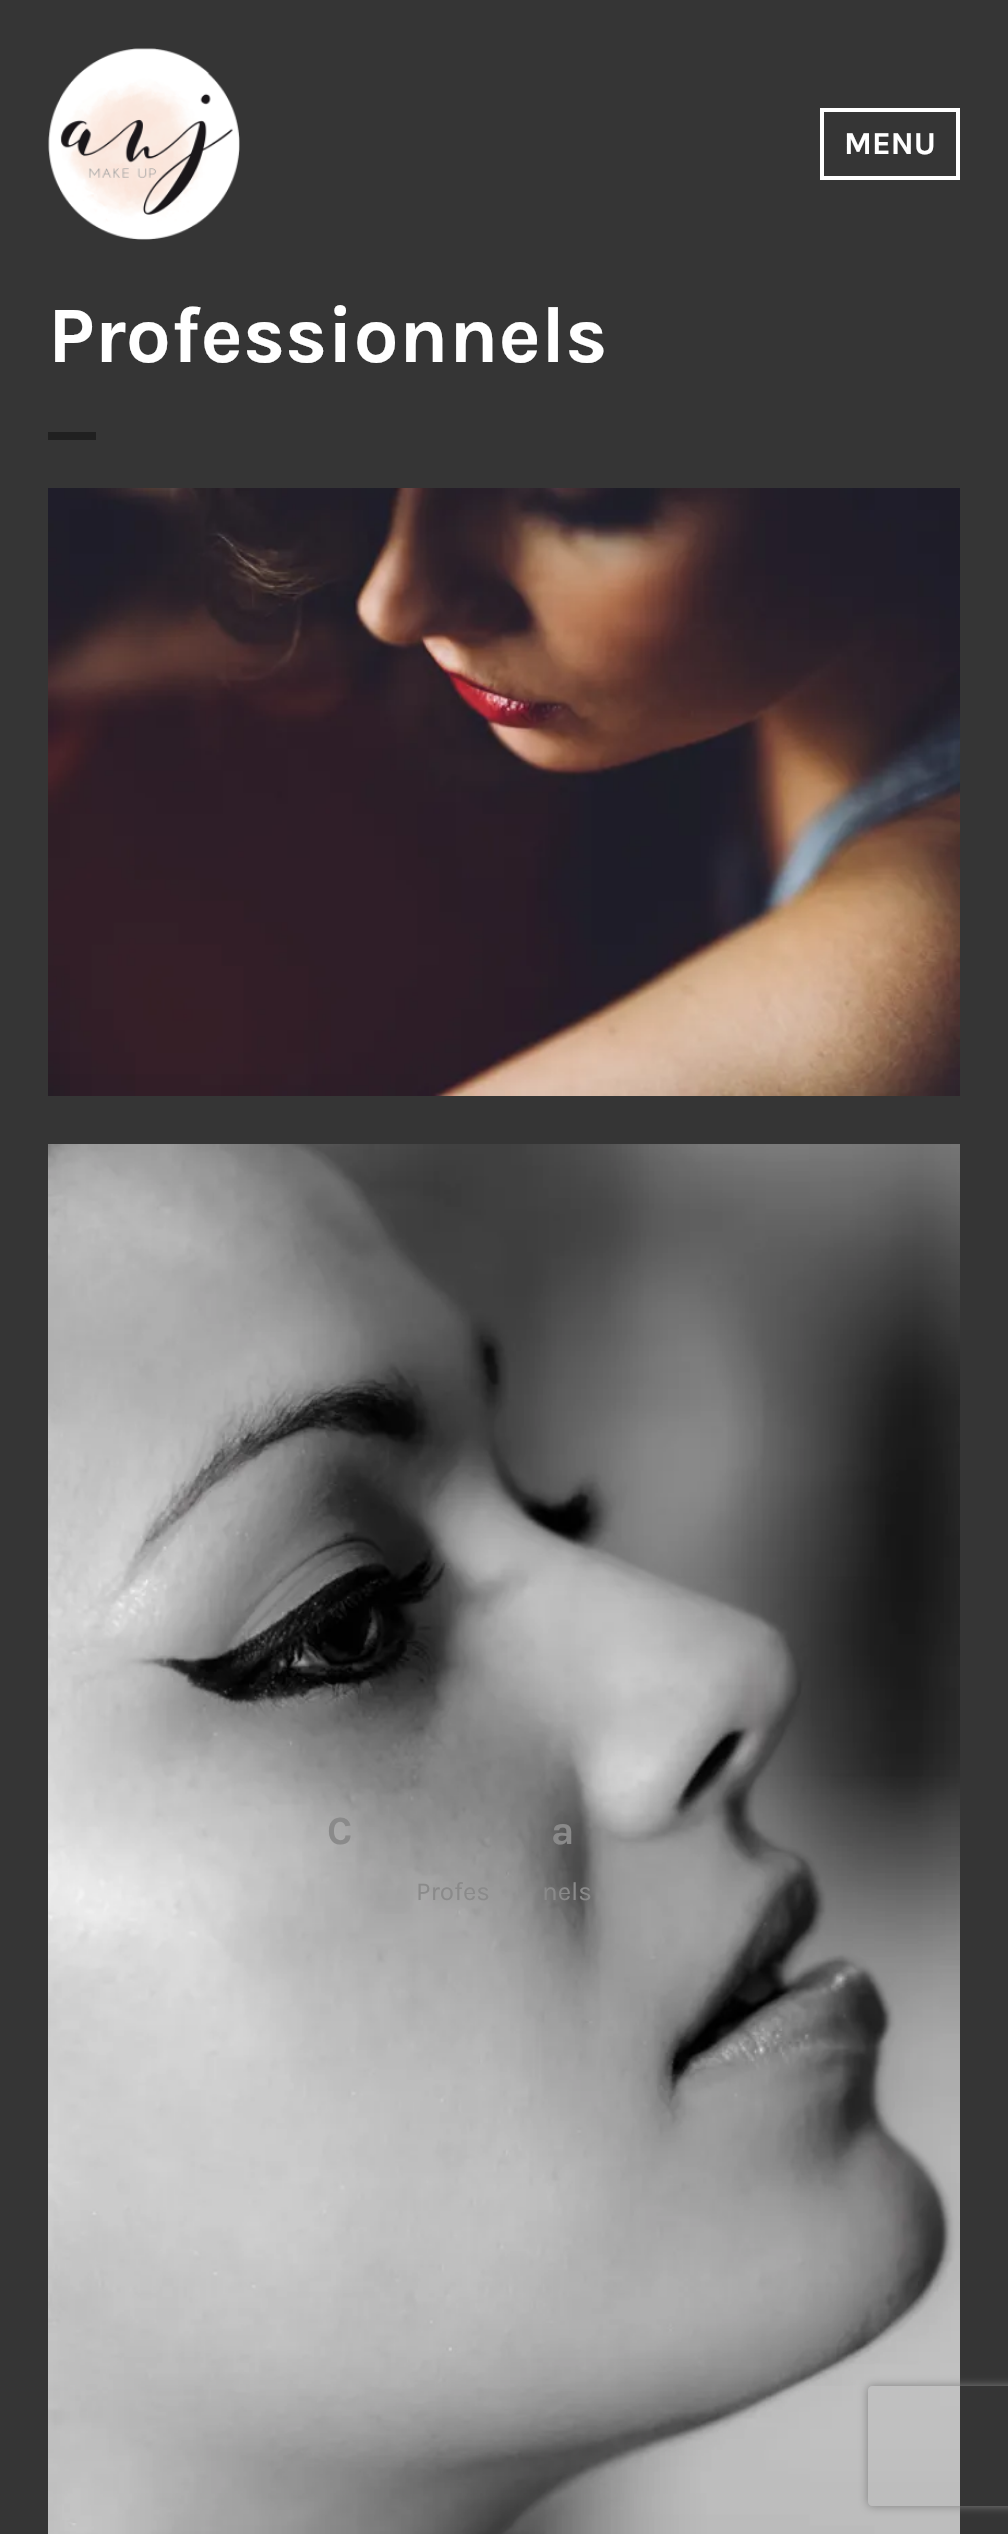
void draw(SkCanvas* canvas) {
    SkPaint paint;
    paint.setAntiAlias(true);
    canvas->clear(0xFF353535);
    canvas->drawImageRect(SkImages::DeferredFromEncodedData(SkData::MakeFromFileName("img1.png")), SkRect::MakeXYWH(48, 48, 192, 192), SkSamplingOptions());
    paint.setStyle(SkPaint::kStroke_Style);
    paint.setStrokeWidth(4);
    paint.setColor(0xFFFFFFFF);
    canvas->drawRect(SkRect::MakeXYWH(822, 110, 136, 68), paint);
    SkFont font1(fontMgr->matchFamilyStyle("Karla", SkFontStyle::Bold()), 32);
    font1.setSubpixel(true);
    paint.setStyle(SkPaint::kFill_Style);
    canvas->drawString("MENU", 844, 154, font1, paint);
    SkFont font2(fontMgr->matchFamilyStyle("Karla", SkFontStyle::Bold()), 80);
    font2.setSubpixel(true);
    canvas->drawString("Professionnels", 48, 362, font2, paint);
    paint.setColor(0xFF202020);
    canvas->drawRect(SkRect::MakeXYWH(48, 432, 48, 8), paint);
    canvas->drawImageRect(SkImages::DeferredFromEncodedData(SkData::MakeFromFileName("img2.png")), SkRect::MakeXYWH(48, 488, 912, 608), SkSamplingOptions());
    canvas->drawImageRect(SkImages::DeferredFromEncodedData(SkData::MakeFromFileName("img3.png")), SkRect::MakeXYWH(48, 1144, 912, 1390), SkSamplingOptions());
    SkFont font3(fontMgr->matchFamilyStyle("Karla", SkFontStyle::Bold()), 40);
    font3.setSubpixel(true);
    paint.setColor(0xFF8A8A8A);
    canvas->drawString("C", 327, 1844, font3, paint);
    canvas->drawString("a", 551, 1844, font3, paint);
    SkFont font4(fontMgr->matchFamilyStyle("Karla", SkFontStyle::Normal()), 26);
    font4.setSubpixel(true);
    canvas->drawString("Profes", 416, 1900, font4, paint);
    canvas->drawString("nels", 542, 1900, font4, paint);
    canvas->save();
    canvas->clipPath(SkPathBuilder(SkPathFillType::kEvenOdd).moveTo(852, 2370).lineTo(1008, 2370).lineTo(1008, 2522).lineTo(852, 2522).close().moveTo(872, 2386).lineTo(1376, 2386).cubicTo(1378, 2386, 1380, 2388, 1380, 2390).lineTo(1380, 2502).cubicTo(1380, 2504, 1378, 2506, 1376, 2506).lineTo(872, 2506).cubicTo(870, 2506, 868, 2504, 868, 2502).lineTo(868, 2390).cubicTo(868, 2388, 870, 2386, 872, 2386).close().detach(), true);
    paint.setColor(0xFF808080);
    paint.setMaskFilter(SkMaskFilter::MakeBlur(kNormal_SkBlurStyle, 5));
    canvas->drawRoundRect(SkRect::MakeXYWH(868, 2386, 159, 120), 4, 4, paint);
    paint.setMaskFilter(nullptr);
    canvas->restore();
}
